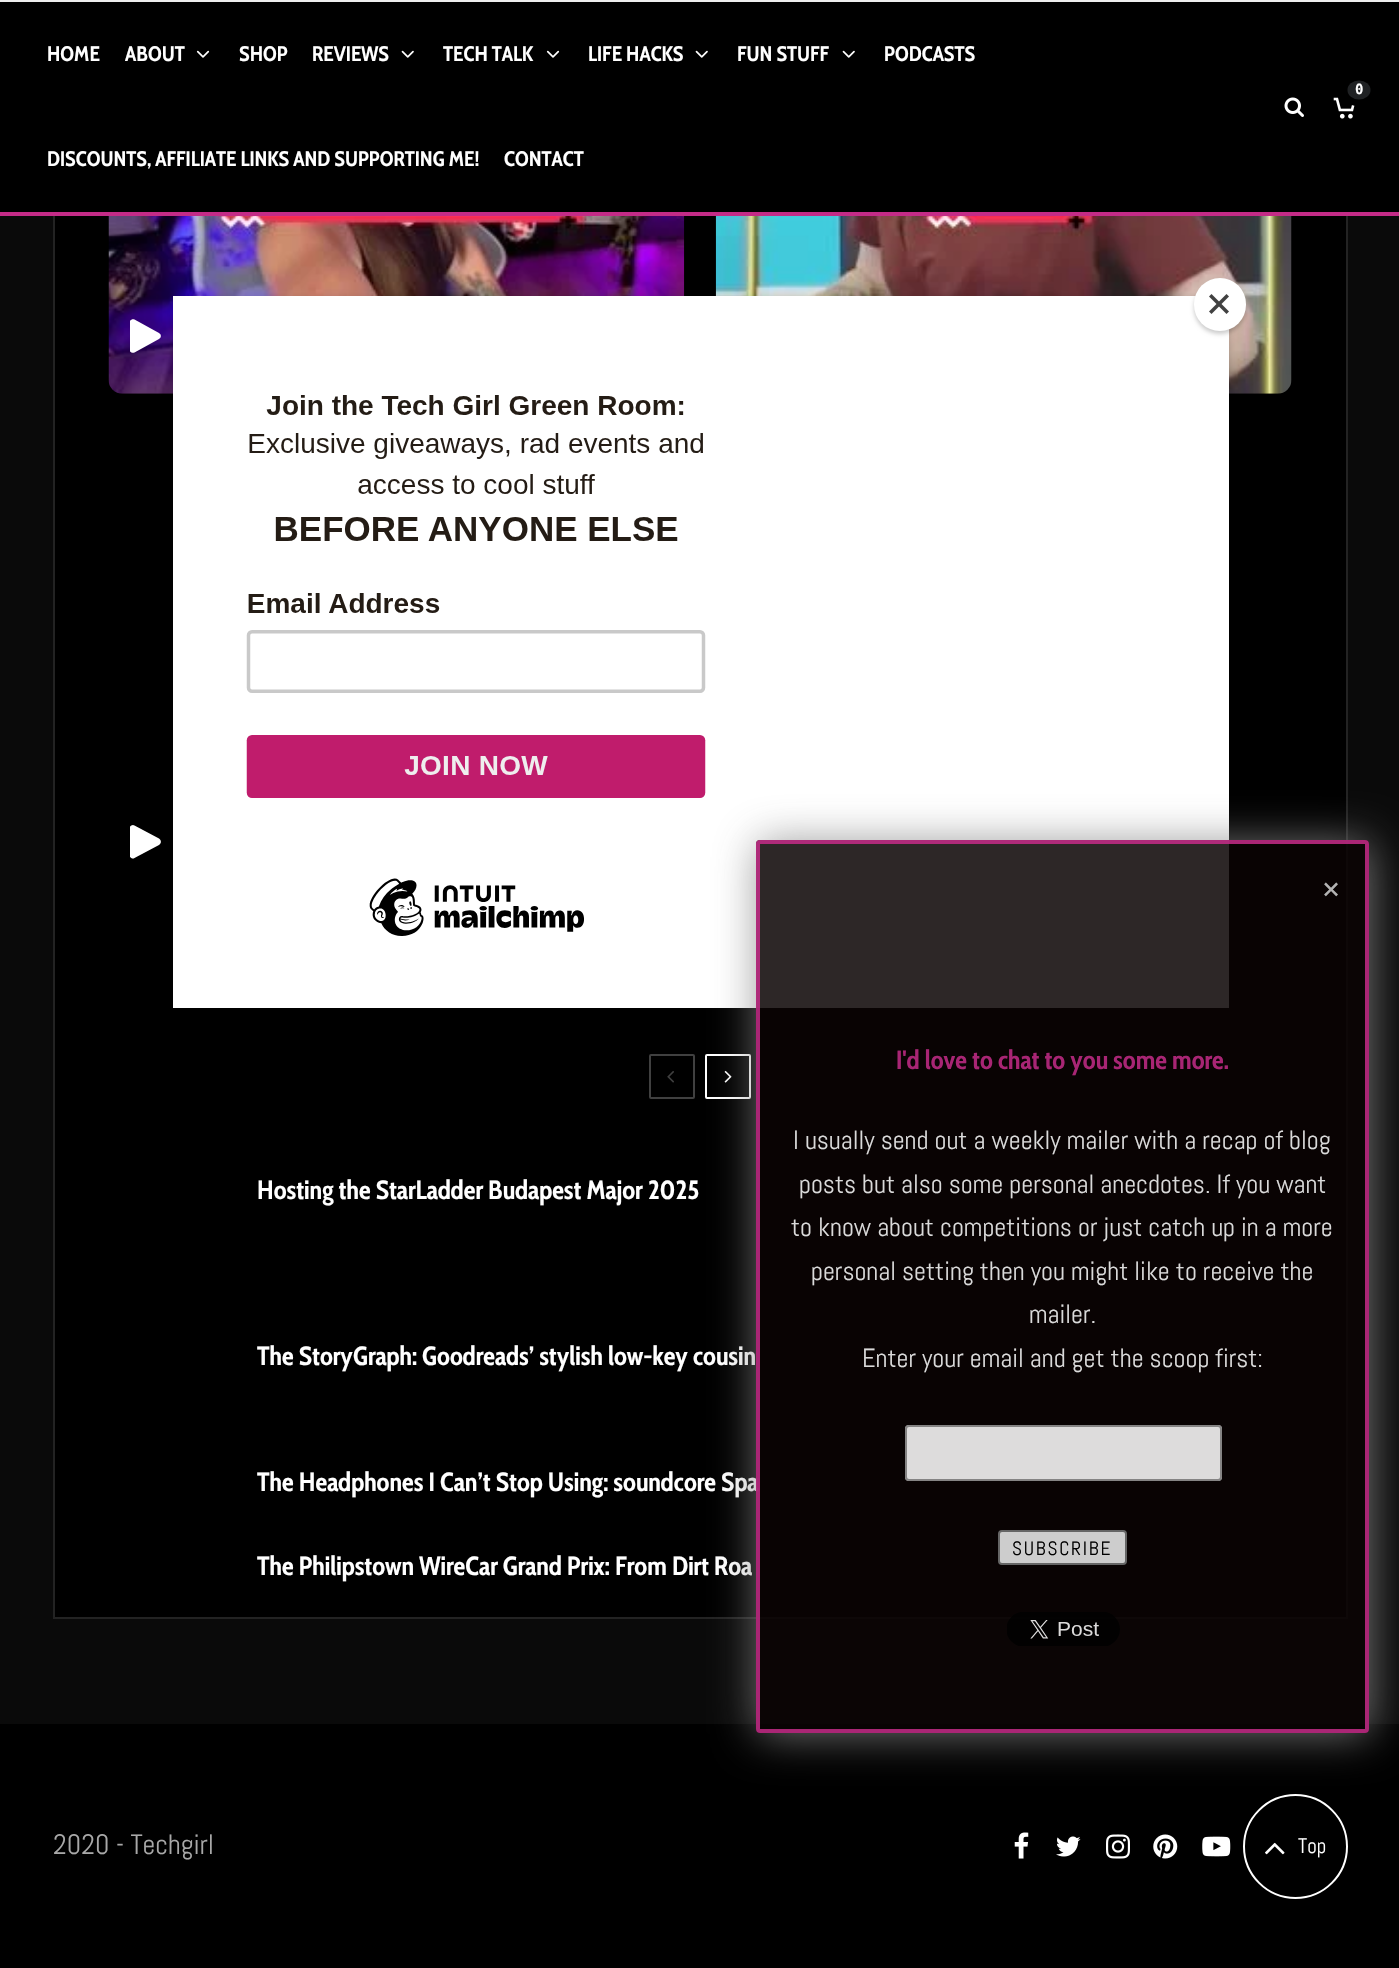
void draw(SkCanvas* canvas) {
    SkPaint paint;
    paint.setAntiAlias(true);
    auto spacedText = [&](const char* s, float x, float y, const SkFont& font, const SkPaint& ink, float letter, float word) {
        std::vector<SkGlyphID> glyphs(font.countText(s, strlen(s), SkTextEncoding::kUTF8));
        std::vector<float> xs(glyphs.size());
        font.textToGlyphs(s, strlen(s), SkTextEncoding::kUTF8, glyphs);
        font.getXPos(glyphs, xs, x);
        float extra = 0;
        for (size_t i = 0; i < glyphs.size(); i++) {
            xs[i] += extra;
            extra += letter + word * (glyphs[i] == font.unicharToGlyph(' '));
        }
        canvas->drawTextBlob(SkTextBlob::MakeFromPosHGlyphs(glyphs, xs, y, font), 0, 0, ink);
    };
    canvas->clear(0xFF0A0A0A);
    paint.setColor(0xFF000000);
    canvas->drawRect(SkRect::MakeXYWH(55, 216, 1291, 1401), paint);
    paint.setStyle(SkPaint::kStroke_Style);
    paint.setStrokeWidth(2);
    paint.setColor(0xFF232323);
    canvas->drawRect(SkRect::MakeXYWH(54, -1, 1293, 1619), paint);
    paint.setStyle(SkPaint::kFill_Style);
    paint.setColor(0xFF000000);
    canvas->drawRect(SkRect::MakeXYWH(0, 2, 1399, 210), paint);
    paint.setColor(0xFFEEEEEE);
    canvas->drawRect(SkRect::MakeXYWH(0, 0, 1399, 2), paint);
    paint.setColor(0xFFC42B87);
    canvas->drawRect(SkRect::MakeXYWH(0, 212, 1399, 4), paint);
    SkFont font1(fontMgr->matchFamilyStyle("Cabin Condensed", SkFontStyle::Bold()), 21);
    font1.setSubpixel(true);
    paint.setColor(0xFFFFFFFF);
    canvas->drawString("HOME", 47, 61, font1, paint);
    canvas->drawString("ABOUT", 125, 61, font1, paint);
    canvas->drawImageRect(SkImages::DeferredFromEncodedData(SkData::MakeFromFileName("img1.png")), SkRect::MakeXYWH(196, 50, 14, 8), SkSamplingOptions());
    canvas->drawString("SHOP", 239, 61, font1, paint);
    canvas->drawString("REVIEWS", 312, 61, font1, paint);
    canvas->drawImageRect(SkImages::DeferredFromEncodedData(SkData::MakeFromFileName("img2.png")), SkRect::MakeXYWH(401, 50, 13, 8), SkSamplingOptions());
    canvas->drawString("TECH TALK", 443, 61, font1, paint);
    canvas->drawImageRect(SkImages::DeferredFromEncodedData(SkData::MakeFromFileName("img1.png")), SkRect::MakeXYWH(546, 50, 14, 8), SkSamplingOptions());
    canvas->drawString("LIFE HACKS", 588, 61, font1, paint);
    canvas->drawImageRect(SkImages::DeferredFromEncodedData(SkData::MakeFromFileName("img2.png")), SkRect::MakeXYWH(695, 50, 13, 8), SkSamplingOptions());
    canvas->drawString("FUN STUFF", 737, 61, font1, paint);
    canvas->drawImageRect(SkImages::DeferredFromEncodedData(SkData::MakeFromFileName("img2.png")), SkRect::MakeXYWH(842, 50, 13, 8), SkSamplingOptions());
    canvas->drawString("PODCASTS", 884, 61, font1, paint);
    canvas->drawString("DISCOUNTS, AFFILIATE LINKS AND SUPPORTING ME!", 47, 166, font1, paint);
    canvas->drawString("CONTACT", 504, 166, font1, paint);
    canvas->drawImageRect(SkImages::DeferredFromEncodedData(SkData::MakeFromFileName("img3.png")), SkRect::MakeXYWH(1333, 97, 22, 22), SkSamplingOptions());
    paint.setColor(0xFF1F2123);
    canvas->drawOval(SkRect::MakeXYWH(1347.5f, 80.5f, 23, 19), paint);
    SkFont font2(fontMgr->matchFamilyStyle("DejaVu Sans Mono", SkFontStyle::Bold()), 14);
    font2.setSubpixel(true);
    paint.setColor(0xFFFFFFFF);
    canvas->drawString("0", 1355, 94, font2, paint);
    canvas->drawImageRect(SkImages::DeferredFromEncodedData(SkData::MakeFromFileName("img4.png")), SkRect::MakeXYWH(1284, 97, 20, 20), SkSamplingOptions());
    canvas->drawImageRect(SkImages::DeferredFromEncodedData(SkData::MakeFromFileName("img5.png")), SkRect::MakeXYWH(108, 216, 577, 178), SkSamplingOptions());
    canvas->save();
    canvas->clipRect(SkRect::MakeXYWH(130, 319, 31, 35));
    canvas->drawPath(SkPathBuilder().moveTo(129.5f, 322.5f).cubicTo(129.5f, 320, 132.5f, 318.5f, 134.5f, 319.5f).lineTo(159, 333).cubicTo(161.5f, 334.5f, 161.5f, 337.5f, 159, 339).lineTo(134.5f, 352.5f).cubicTo(132.5f, 353.5f, 129.5f, 352, 129.5f, 349.5f).close().detach(), paint);
    canvas->restore();
    canvas->drawImageRect(SkImages::DeferredFromEncodedData(SkData::MakeFromFileName("img6.png")), SkRect::MakeXYWH(715, 216, 577, 178), SkSamplingOptions());
    canvas->save();
    canvas->clipRect(SkRect::MakeXYWH(130, 824, 31, 35));
    canvas->drawPath(SkPathBuilder().moveTo(129.5f, 828.5f).cubicTo(129.5f, 826, 132.5f, 824, 134.5f, 825.5f).lineTo(159, 838.5f).cubicTo(161.5f, 840, 161.5f, 843.5f, 159, 845).lineTo(134.5f, 858).cubicTo(132.5f, 859.5f, 129.5f, 857.5f, 129.5f, 855).close().detach(), paint);
    canvas->restore();
    paint.setStyle(SkPaint::kStroke_Style);
    paint.setColor(0xFF404040);
    canvas->drawRoundRect(SkRect::MakeXYWH(650, 1055, 44, 43), 1, 1, paint);
    canvas->drawImageRect(SkImages::DeferredFromEncodedData(SkData::MakeFromFileName("img7.png")), SkRect::MakeXYWH(667, 1071, 7, 12), SkSamplingOptions());
    paint.setColor(0xFFFFFFFF);
    canvas->drawRoundRect(SkRect::MakeXYWH(706, 1055, 44, 43), 1, 1, paint);
    canvas->drawImageRect(SkImages::DeferredFromEncodedData(SkData::MakeFromFileName("img8.png")), SkRect::MakeXYWH(724, 1070, 8, 13), SkSamplingOptions());
    SkFont font3(fontMgr->matchFamilyStyle("Cabin Condensed", SkFontStyle::Bold()), 26.25f);
    font3.setSubpixel(true);
    paint.setStyle(SkPaint::kFill_Style);
    canvas->drawString("Hosting the StarLadder Budapest Major 2025", 257, 1199, font3, paint);
    canvas->drawString("The StoryGraph: Goodreads’ stylish low-key cousin", 257, 1365, font3, paint);
    canvas->drawString("The Headphones I Can’t Stop Using: soundcore Spa", 257, 1491, font3, paint);
    canvas->drawString("The Philipstown WireCar Grand Prix: From Dirt Roa", 257, 1575, font3, paint);
    paint.setColor(0xFF000000);
    canvas->drawRect(SkRect::MakeXYWH(0, 1724, 1399, 244), paint);
    SkFont font4(fontMgr->matchFamilyStyle("Abel", SkFontStyle::Normal()), 28);
    font4.setSubpixel(true);
    paint.setColor(0xFFA8A8A8);
    canvas->drawString("2020 - Techgirl", 53, 1854, font4, paint);
    canvas->drawImageRect(SkImages::DeferredFromEncodedData(SkData::MakeFromFileName("img9.png")), SkRect::MakeXYWH(1014, 1832, 15, 27), SkSamplingOptions());
    canvas->drawImageRect(SkImages::DeferredFromEncodedData(SkData::MakeFromFileName("img10.png")), SkRect::MakeXYWH(1056, 1836, 25, 21), SkSamplingOptions());
    canvas->drawImageRect(SkImages::DeferredFromEncodedData(SkData::MakeFromFileName("img11.png")), SkRect::MakeXYWH(1106, 1834, 24, 25), SkSamplingOptions());
    canvas->drawImageRect(SkImages::DeferredFromEncodedData(SkData::MakeFromFileName("img12.png")), SkRect::MakeXYWH(1153, 1834, 25, 25), SkSamplingOptions());
    canvas->drawImageRect(SkImages::DeferredFromEncodedData(SkData::MakeFromFileName("img13.png")), SkRect::MakeXYWH(1202, 1836, 29, 21), SkSamplingOptions());
    paint.setStyle(SkPaint::kStroke_Style);
    paint.setColor(0xFFFFFFFF);
    canvas->drawCircle(1295.5f, 1846.5f, 51.5f, paint);
    canvas->drawImageRect(SkImages::DeferredFromEncodedData(SkData::MakeFromFileName("img14.png")), SkRect::MakeXYWH(1265, 1842, 20, 13), SkSamplingOptions());
    SkFont font5(fontMgr->matchFamilyStyle("Abel", SkFontStyle::Normal()), 21);
    font5.setSubpixel(true);
    paint.setStyle(SkPaint::kFill_Style);
    canvas->drawString("Top", 1298, 1853, font5, paint);
    paint.setColor(0x33000000);
    paint.setMaskFilter(SkMaskFilter::MakeBlur(kNormal_SkBlurStyle, 3.5f));
    canvas->drawRect(SkRect::MakeXYWH(173, 299, 1056, 713), paint);
    paint.setMaskFilter(nullptr);
    canvas->drawImageRect(SkImages::DeferredFromEncodedData(SkData::MakeFromFileName("img15.png")), SkRect::MakeXYWH(173, 296, 1056, 712), SkSamplingOptions());
    paint.setMaskFilter(SkMaskFilter::MakeBlur(kNormal_SkBlurStyle, 2));
    canvas->drawRoundRect(SkRect::MakeXYWH(1194, 282, 52, 52), 26, 26, paint);
    paint.setMaskFilter(nullptr);
    paint.setColor(0xFFFFFFFF);
    canvas->drawRoundRect(SkRect::MakeXYWH(1194, 278, 52, 53), 26, 26, paint);
    paint.setColor(0xFF414141);
    canvas->drawPath(SkPathBuilder().moveTo(1226.5f, 294).lineTo(1229, 296.5f).lineTo(1211.5f, 314).lineTo(1209, 311.5f).close().detach(), paint);
    canvas->drawPath(SkPathBuilder().moveTo(1209, 296.5f).lineTo(1211.5f, 294).lineTo(1229, 311.5f).lineTo(1226.5f, 314).close().detach(), paint);
    canvas->save();
    canvas->clipPath(SkPathBuilder(SkPathFillType::kEvenOdd).moveTo(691, 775).lineTo(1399, 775).lineTo(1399, 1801).lineTo(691, 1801).close().moveTo(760, 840).lineTo(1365, 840).cubicTo(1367, 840, 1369, 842, 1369, 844).lineTo(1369, 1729).cubicTo(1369, 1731, 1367, 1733, 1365, 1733).lineTo(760, 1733).cubicTo(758, 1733, 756, 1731, 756, 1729).lineTo(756, 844).cubicTo(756, 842, 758, 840, 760, 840).close().detach(), true);
    paint.setColor(0xDB888888);
    paint.setMaskFilter(SkMaskFilter::MakeBlur(kNormal_SkBlurStyle, 22));
    canvas->drawRoundRect(SkRect::MakeXYWH(758, 842, 612, 892), 4, 4, paint);
    paint.setMaskFilter(nullptr);
    canvas->restore();
    paint.setColor(0xDB0A0404);
    canvas->drawRoundRect(SkRect::MakeXYWH(756, 840, 613, 893), 4, 4, paint);
    paint.setStyle(SkPaint::kStroke_Style);
    paint.setStrokeWidth(4);
    paint.setColor(0xDBC42B87);
    canvas->drawRoundRect(SkRect::MakeXYWH(758, 842, 609, 889), 2, 2, paint);
    SkFont font6(fontMgr->matchFamilyStyle("Abel", SkFontStyle::Bold()), 26.25f);
    font6.setSubpixel(true);
    paint.setStyle(SkPaint::kFill_Style);
    paint.setColor(0xFFB3B3B3);
    canvas->drawString("×", 1323, 899, font6, paint);
    paint.setColor(0xFFA82574);
    canvas->drawString("I'd love to chat to you some more.", 896, 1069, font3, paint);
    SkFont font7(fontMgr->matchFamilyStyle("Abel", SkFontStyle::Normal()), 26.25f);
    font7.setSubpixel(true);
    paint.setColor(0xFFDADADA);
    canvas->drawString("I usually send out a weekly mailer with a recap of blog", 793, 1149, font7, paint);
    canvas->drawString("posts but also some personal anecdotes. If you want", 799, 1193, font7, paint);
    canvas->drawString("to know about competitions or just catch up in a more", 791, 1236, font7, paint);
    canvas->drawString("personal setting then you might like to receive the", 811, 1280, font7, paint);
    canvas->drawString("mailer.", 1029, 1323, font7, paint);
    canvas->drawString("Enter your email and get the scoop first:", 862, 1367, font7, paint);
    paint.setColor(0xDBFFFFFF);
    canvas->drawRoundRect(SkRect::MakeXYWH(905, 1425, 317, 56), 4, 4, paint);
    paint.setStyle(SkPaint::kStroke_Style);
    paint.setStrokeWidth(2);
    paint.setColor(0xDB767676);
    canvas->drawRoundRect(SkRect::MakeXYWH(906, 1426, 315, 54), 3, 3, paint);
    paint.setStyle(SkPaint::kFill_Style);
    paint.setColor(0xFFCDCDCD);
    canvas->drawRoundRect(SkRect::MakeXYWH(999, 1531, 127, 33), 3, 3, paint);
    paint.setStyle(SkPaint::kStroke_Style);
    paint.setColor(0xFF656565);
    canvas->drawRoundRect(SkRect::MakeXYWH(999, 1531, 127, 33), 3, 3, paint);
    SkFont font8(fontMgr->matchFamilyStyle("Abel", SkFontStyle::Normal()), 19.25f);
    font8.setSubpixel(true);
    paint.setStyle(SkPaint::kFill_Style);
    paint.setColor(0xFF000000);
    spacedText("SUBSCRIBE", 1012, 1555, font8, paint, 1.75f, 0);
    canvas->drawImageRect(SkImages::DeferredFromEncodedData(SkData::MakeFromFileName("img16.png")), SkRect::MakeXYWH(1007, 1612, 113, 34), SkSamplingOptions());
}
